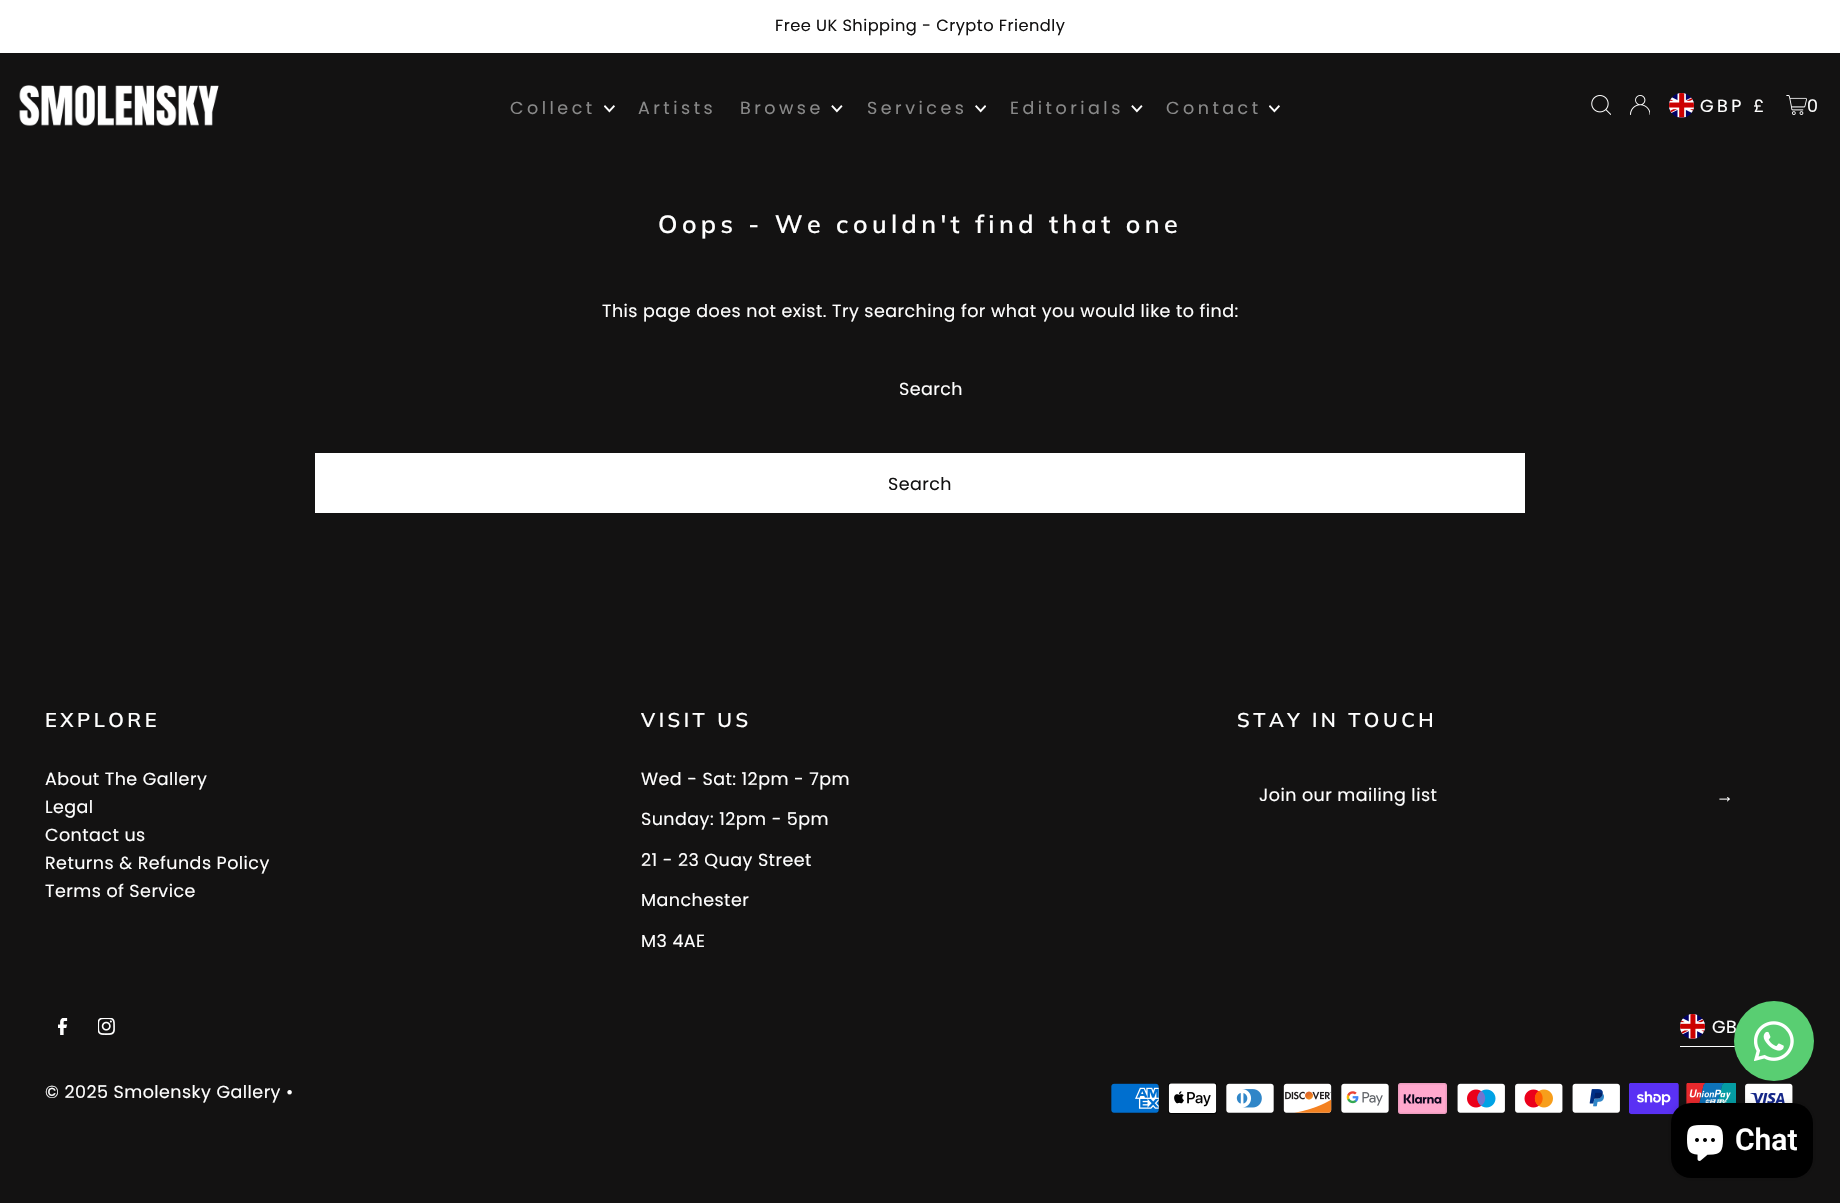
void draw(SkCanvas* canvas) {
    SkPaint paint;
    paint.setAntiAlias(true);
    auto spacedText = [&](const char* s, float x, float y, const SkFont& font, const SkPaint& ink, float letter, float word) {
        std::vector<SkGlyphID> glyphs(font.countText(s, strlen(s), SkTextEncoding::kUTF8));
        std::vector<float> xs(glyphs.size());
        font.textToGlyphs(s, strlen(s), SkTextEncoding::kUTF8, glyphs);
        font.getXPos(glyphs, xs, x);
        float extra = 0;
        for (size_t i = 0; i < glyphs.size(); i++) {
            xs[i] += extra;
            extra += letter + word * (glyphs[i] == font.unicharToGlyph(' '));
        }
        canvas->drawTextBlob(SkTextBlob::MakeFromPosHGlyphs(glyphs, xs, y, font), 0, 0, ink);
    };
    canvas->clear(0xFF131212);
    paint.setColor(0xFFFFFFFF);
    canvas->drawRect(SkRect::MakeXYWH(0, 0, 1840, 53), paint);
    SkFont font1(fontMgr->matchFamilyStyle("Poppins", SkFontStyle::Normal()), 16.25f);
    font1.setSubpixel(true);
    paint.setColor(0xFF131212);
    spacedText("Free UK Shipping - Crypto Friendly", 775, 31, font1, paint, 0.45f, 0);
    canvas->drawImageRect(SkImages::DeferredFromEncodedData(SkData::MakeFromFileName("img1.png")), SkRect::MakeXYWH(19, 85, 200, 41), SkSamplingOptions());
    SkFont font2(fontMgr->matchFamilyStyle("Poppins", SkFontStyle::Normal()), 17.5f);
    font2.setSubpixel(true);
    paint.setColor(0xFF898989);
    spacedText("Collect", 510, 114, font2, paint, 3.5f, 0);
    canvas->drawImageRect(SkImages::DeferredFromEncodedData(SkData::MakeFromFileName("img2.png")), SkRect::MakeXYWH(604, 105, 11, 8), SkSamplingOptions());
    spacedText("Artists", 638, 114, font2, paint, 3.5f, 0);
    spacedText("Browse", 740, 114, font2, paint, 3.5f, 0);
    canvas->drawImageRect(SkImages::DeferredFromEncodedData(SkData::MakeFromFileName("img3.png")), SkRect::MakeXYWH(831, 105, 12, 8), SkSamplingOptions());
    spacedText("Services", 867, 114, font2, paint, 3.5f, 0);
    canvas->drawImageRect(SkImages::DeferredFromEncodedData(SkData::MakeFromFileName("img4.png")), SkRect::MakeXYWH(975, 105, 11, 8), SkSamplingOptions());
    spacedText("Editorials", 1010, 114, font2, paint, 3.5f, 0);
    canvas->drawImageRect(SkImages::DeferredFromEncodedData(SkData::MakeFromFileName("img3.png")), SkRect::MakeXYWH(1131, 105, 12, 8), SkSamplingOptions());
    spacedText("Contact", 1166, 114, font2, paint, 3.5f, 0);
    canvas->drawImageRect(SkImages::DeferredFromEncodedData(SkData::MakeFromFileName("img2.png")), SkRect::MakeXYWH(1269, 105, 11, 8), SkSamplingOptions());
    canvas->drawImageRect(SkImages::DeferredFromEncodedData(SkData::MakeFromFileName("img5.png")), SkRect::MakeXYWH(1591, 95, 20, 20), SkSamplingOptions());
    canvas->drawImageRect(SkImages::DeferredFromEncodedData(SkData::MakeFromFileName("img6.png")), SkRect::MakeXYWH(1630, 95, 20, 20), SkSamplingOptions());
    canvas->drawImageRect(SkImages::DeferredFromEncodedData(SkData::MakeFromFileName("img7.png")), SkRect::MakeXYWH(1669, 93, 25, 25), SkSamplingOptions());
    paint.setColor(0xFFFFFFFF);
    spacedText("GBP £", 1700, 112, font2, paint, 3.5f, 0);
    canvas->drawImageRect(SkImages::DeferredFromEncodedData(SkData::MakeFromFileName("img8.png")), SkRect::MakeXYWH(1786, 95, 21, 20), SkSamplingOptions());
    spacedText("0", 1807, 112, font2, paint, 3.5f, 0);
    SkFont font3(fontMgr->matchFamilyStyle("Muli", SkFontStyle(600, SkFontStyle::kNormal_Width, SkFontStyle::kUpright_Slant)), 25);
    font3.setSubpixel(true);
    spacedText("Oops - We couldn't find that one", 658, 233, font3, paint, 4.4f, 0);
    spacedText("This page does not exist. Try searching for what you would like to find:", 602, 317, font2, paint, 0.45f, 0);
    spacedText("Search", 899, 395, font2, paint, 0.45f, 0);
    canvas->drawRect(SkRect::MakeXYWH(315, 453, 1210, 60), paint);
    paint.setColor(0xFF131212);
    spacedText("Search", 888, 490, font2, paint, 0.45f, 0);
    SkFont font4(fontMgr->matchFamilyStyle("Muli", SkFontStyle(600, SkFontStyle::kNormal_Width, SkFontStyle::kUpright_Slant)), 20);
    font4.setSubpixel(true);
    paint.setColor(0xFFFFFFFF);
    spacedText("EXPLORE", 45, 727, font4, paint, 3.5f, 0);
    spacedText("About The Gallery", 45, 785, font2, paint, 0.45f, 0);
    spacedText("Legal", 45, 813, font2, paint, 0.45f, 0);
    spacedText("Contact us", 45, 841, font2, paint, 0.45f, 0);
    spacedText("Returns & Refunds Policy", 45, 869, font2, paint, 0.45f, 0);
    spacedText("Terms of Service", 45, 897, font2, paint, 0.45f, 0);
    spacedText("VISIT US", 641, 727, font4, paint, 3.5f, 0);
    spacedText("Wed - Sat: 12pm - 7pm", 641, 785, font2, paint, 0.45f, 0);
    spacedText("Sunday: 12pm - 5pm", 641, 825, font2, paint, 0.45f, 0);
    spacedText("21 - 23 Quay Street", 641, 866, font2, paint, 0.45f, 0);
    spacedText("Manchester", 641, 906, font2, paint, 0.45f, 0);
    spacedText("M3 4AE", 641, 947, font2, paint, 0.45f, 0);
    spacedText("STAY IN TOUCH", 1237, 727, font4, paint, 3.5f, 0);
    spacedText("Join our mailing list", 1259, 801, font2, paint, 0.45f, 0);
    SkFont font5(fontMgr->matchFamilyStyle("Liberation Sans", SkFontStyle::Normal()), 17.5f);
    font5.setSubpixel(true);
    spacedText("→", 1716, 802, font5, paint, 0.45f, 0);
    canvas->drawRect(SkRect::MakeXYWH(1680, 1046, 55, 1), paint);
    canvas->drawImageRect(SkImages::DeferredFromEncodedData(SkData::MakeFromFileName("img9.png")), SkRect::MakeXYWH(1680, 1014, 25, 25), SkSamplingOptions());
    spacedText("GB", 1712, 1033, font2, paint, 0.45f, 0);
    canvas->drawImageRect(SkImages::DeferredFromEncodedData(SkData::MakeFromFileName("img10.png")), SkRect::MakeXYWH(1111, 1083, 48, 30), SkSamplingOptions());
    canvas->drawImageRect(SkImages::DeferredFromEncodedData(SkData::MakeFromFileName("img11.png")), SkRect::MakeXYWH(1168, 1083, 49, 31), SkSamplingOptions());
    canvas->drawImageRect(SkImages::DeferredFromEncodedData(SkData::MakeFromFileName("img12.png")), SkRect::MakeXYWH(1226, 1083, 48, 30), SkSamplingOptions());
    canvas->drawImageRect(SkImages::DeferredFromEncodedData(SkData::MakeFromFileName("img13.png")), SkRect::MakeXYWH(1283, 1083, 49, 30), SkSamplingOptions());
    canvas->drawImageRect(SkImages::DeferredFromEncodedData(SkData::MakeFromFileName("img14.png")), SkRect::MakeXYWH(1341, 1083, 48, 30), SkSamplingOptions());
    canvas->drawImageRect(SkImages::DeferredFromEncodedData(SkData::MakeFromFileName("img15.png")), SkRect::MakeXYWH(1398, 1083, 49, 31), SkSamplingOptions());
    canvas->drawImageRect(SkImages::DeferredFromEncodedData(SkData::MakeFromFileName("img16.png")), SkRect::MakeXYWH(1457, 1083, 48, 30), SkSamplingOptions());
    canvas->drawImageRect(SkImages::DeferredFromEncodedData(SkData::MakeFromFileName("img17.png")), SkRect::MakeXYWH(1515, 1083, 48, 30), SkSamplingOptions());
    canvas->drawImageRect(SkImages::DeferredFromEncodedData(SkData::MakeFromFileName("img18.png")), SkRect::MakeXYWH(1572, 1083, 48, 30), SkSamplingOptions());
    canvas->drawImageRect(SkImages::DeferredFromEncodedData(SkData::MakeFromFileName("img19.png")), SkRect::MakeXYWH(1629, 1083, 50, 32), SkSamplingOptions());
    canvas->drawImageRect(SkImages::DeferredFromEncodedData(SkData::MakeFromFileName("img20.png")), SkRect::MakeXYWH(1686, 1083, 50, 21), SkSamplingOptions());
    canvas->drawImageRect(SkImages::DeferredFromEncodedData(SkData::MakeFromFileName("img21.png")), SkRect::MakeXYWH(1745, 1083, 48, 20), SkSamplingOptions());
    canvas->drawImageRect(SkImages::DeferredFromEncodedData(SkData::MakeFromFileName("img22.png")), SkRect::MakeXYWH(58, 1018, 10, 17), SkSamplingOptions());
    canvas->drawImageRect(SkImages::DeferredFromEncodedData(SkData::MakeFromFileName("img23.png")), SkRect::MakeXYWH(98, 1018, 17, 17), SkSamplingOptions());
    spacedText("© 2025 Smolensky Gallery •", 45, 1098, font2, paint, 0.45f, 0);
    paint.setColor(0xFF59CE72);
    canvas->drawCircle(1774, 1041, 40, paint);
    canvas->drawImageRect(SkImages::DeferredFromEncodedData(SkData::MakeFromFileName("img24.png")), SkRect::MakeXYWH(1754, 1021, 40, 40), SkSamplingOptions());
    paint.setColor(0x26000000);
    paint.setMaskFilter(SkMaskFilter::MakeBlur(kNormal_SkBlurStyle, 3));
    canvas->drawRoundRect(SkRect::MakeXYWH(1671, 1103, 142, 75), 20, 20, paint);
    paint.setMaskFilter(nullptr);
    paint.setColor(0xFF000000);
    canvas->drawRoundRect(SkRect::MakeXYWH(1671, 1103, 142, 75), 20, 20, paint);
    canvas->drawImageRect(SkImages::DeferredFromEncodedData(SkData::MakeFromFileName("img25.png")), SkRect::MakeXYWH(1687, 1125, 36, 36), SkSamplingOptions());
    SkFont font6(fontMgr->matchFamilyStyle("Roboto", SkFontStyle(600, SkFontStyle::kNormal_Width, SkFontStyle::kUpright_Slant)), 30);
    font6.setSubpixel(true);
    paint.setColor(0xFFFFFFFF);
    canvas->drawString("Chat", 1735, 1150, font6, paint);
}
